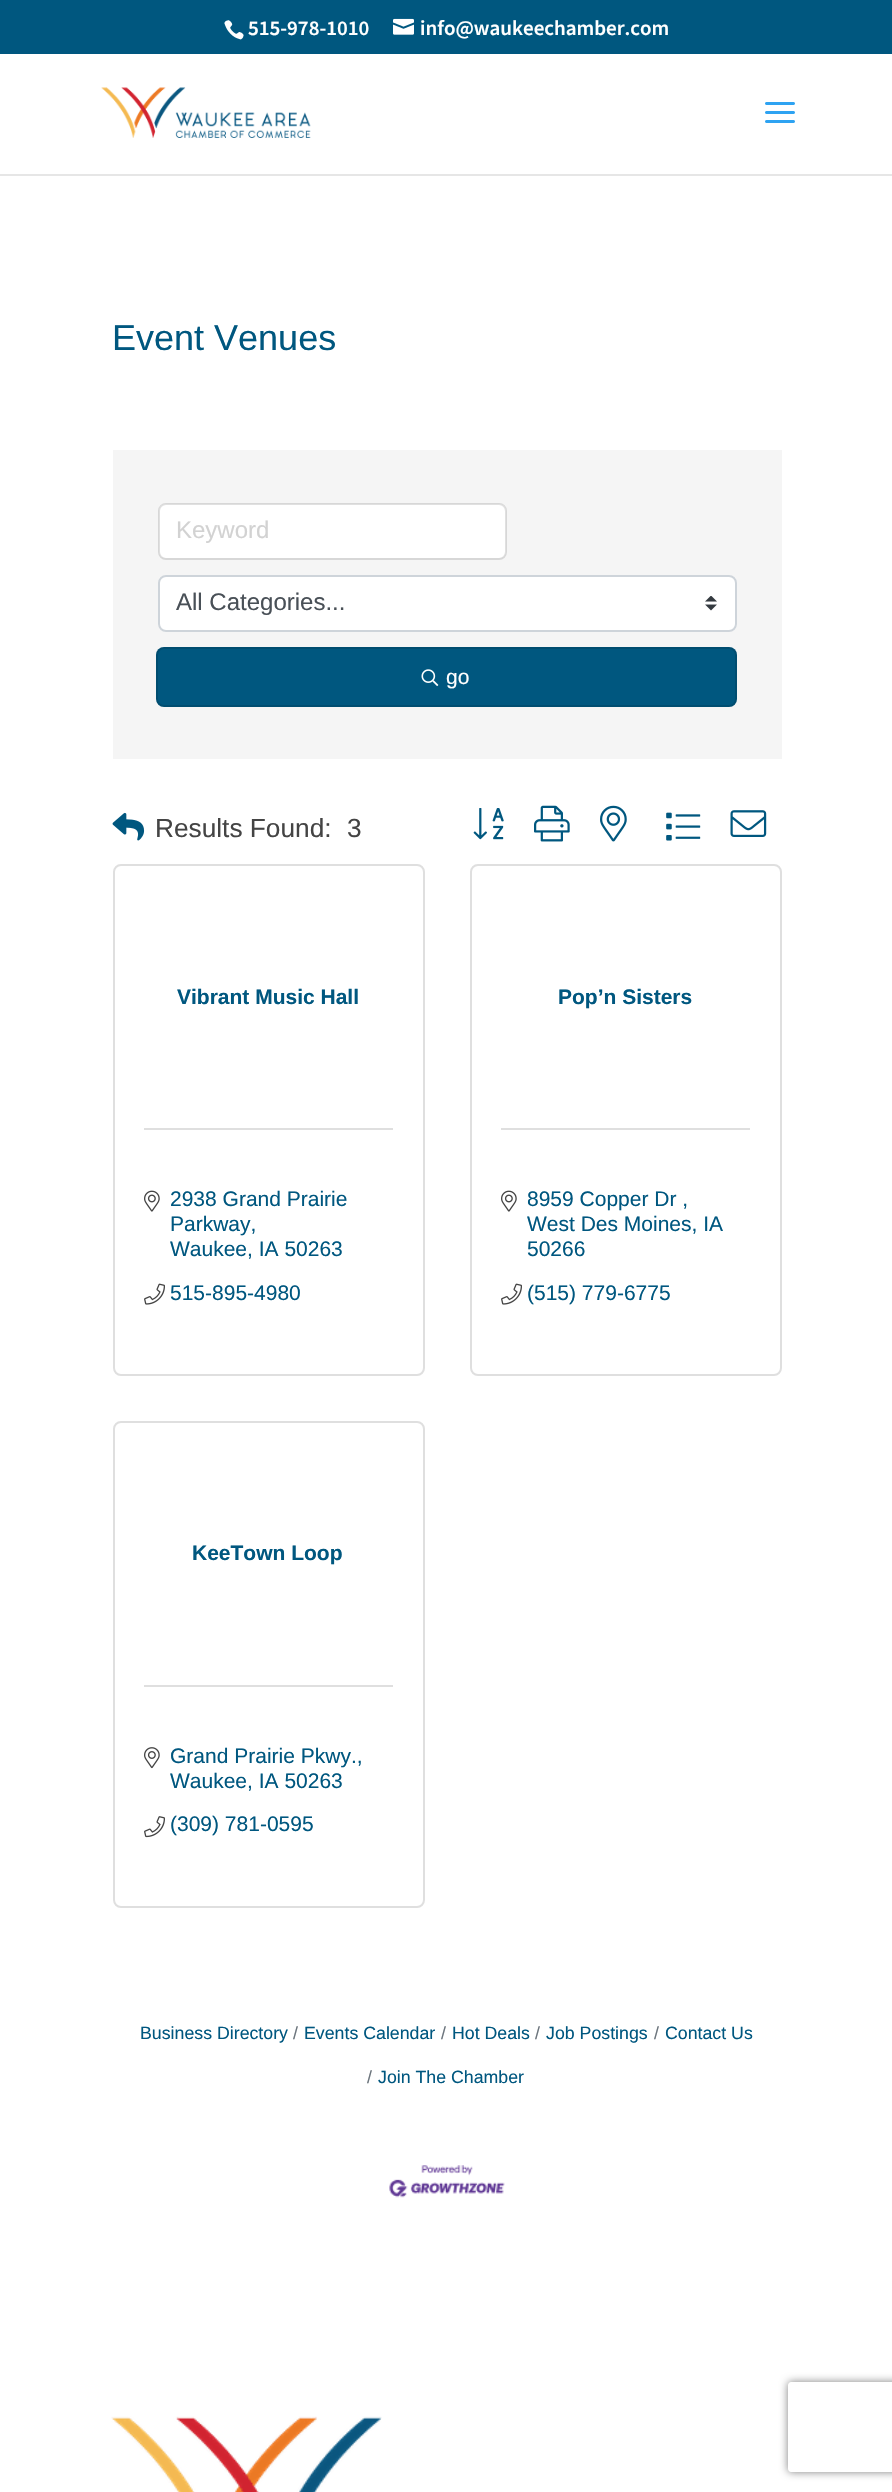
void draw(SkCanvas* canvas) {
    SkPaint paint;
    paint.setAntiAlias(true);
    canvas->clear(0xFFFFFFFF);
    paint.setColor(0xFF00577F);
    canvas->drawRect(SkRect::MakeXYWH(0, 0, 892, 54), paint);
    canvas->drawImageRect(SkImages::DeferredFromEncodedData(SkData::MakeFromFileName("img1.png")), SkRect::MakeXYWH(224, 20, 20, 20), SkSamplingOptions());
    SkFont font1(fontMgr->matchFamilyStyle("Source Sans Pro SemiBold", SkFontStyle(600, SkFontStyle::kNormal_Width, SkFontStyle::kUpright_Slant)), 21);
    font1.setSubpixel(true);
    paint.setColor(0xFFFFFFFF);
    canvas->drawString("515-978-1010", 248, 35, font1, paint);
    canvas->drawImageRect(SkImages::DeferredFromEncodedData(SkData::MakeFromFileName("img2.png")), SkRect::MakeXYWH(393, 18, 21, 17), SkSamplingOptions());
    canvas->drawString("info@waukeechamber.com", 420, 35, font1, paint);
    paint.setColor(0xFFE6E6E6);
    canvas->drawPath(SkPathBuilder().moveTo(0, 174).lineTo(0, 176).lineTo(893, 176).lineTo(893, 56).lineTo(892, 56).lineTo(892, 174).close().detach(), paint);
    canvas->drawImageRect(SkImages::DeferredFromEncodedData(SkData::MakeFromFileName("img3.png")), SkRect::MakeXYWH(101, 87, 210, 51), SkSamplingOptions());
    canvas->drawImageRect(SkImages::DeferredFromEncodedData(SkData::MakeFromFileName("img4.png")), SkRect::MakeXYWH(765, 102, 30, 21), SkSamplingOptions());
    SkFont font2(fontMgr->matchFamilyStyle("Liberation Sans", SkFontStyle::Normal()), 36);
    font2.setSubpixel(true);
    paint.setColor(0xFF00577F);
    canvas->drawString("Event Venues", 112, 350, font2, paint);
    paint.setColor(0xFFF5F5F5);
    canvas->drawRect(SkRect::MakeXYWH(113, 450, 669, 309), paint);
    paint.setColor(0xFFFFFFFF);
    canvas->drawRoundRect(SkRect::MakeXYWH(159, 504, 347, 54), 6, 6, paint);
    paint.setStyle(SkPaint::kStroke_Style);
    paint.setStrokeWidth(2);
    paint.setColor(0x1F000000);
    canvas->drawRoundRect(SkRect::MakeXYWH(159, 504, 347, 55), 7, 7, paint);
    SkFont font3(fontMgr->matchFamilyStyle("Liberation Sans", SkFontStyle::Normal()), 24);
    font3.setSubpixel(true);
    paint.setStyle(SkPaint::kFill_Style);
    paint.setColor(0xFFD2D2D2);
    canvas->drawString("Keyword", 176, 538, font3, paint);
    paint.setColor(0xFFFFFFFF);
    canvas->drawRoundRect(SkRect::MakeXYWH(158, 575, 579, 57), 8, 8, paint);
    canvas->drawImageRect(SkImages::DeferredFromEncodedData(SkData::MakeFromFileName("img5.png")), SkRect::MakeXYWH(705, 596, 12, 15), SkSamplingOptions());
    paint.setStyle(SkPaint::kStroke_Style);
    paint.setColor(0xFFCED4DA);
    canvas->drawRoundRect(SkRect::MakeXYWH(159, 576, 577, 55), 7, 7, paint);
    paint.setStyle(SkPaint::kFill_Style);
    paint.setColor(0xFF495057);
    canvas->drawString("All Categories...", 176, 610, font3, paint);
    paint.setColor(0xFF00577F);
    canvas->drawRoundRect(SkRect::MakeXYWH(156, 647, 581, 60), 8, 8, paint);
    paint.setStyle(SkPaint::kStroke_Style);
    paint.setColor(0x1F000000);
    canvas->drawRoundRect(SkRect::MakeXYWH(157, 648, 579, 58), 7, 7, paint);
    canvas->drawImageRect(SkImages::DeferredFromEncodedData(SkData::MakeFromFileName("img6.png")), SkRect::MakeXYWH(421, 669, 18, 18), SkSamplingOptions());
    SkFont font4(fontMgr->matchFamilyStyle("Liberation Sans", SkFontStyle::Normal()), 21);
    font4.setSubpixel(true);
    paint.setStyle(SkPaint::kFill_Style);
    paint.setColor(0xFFFFFFFF);
    canvas->drawString("go", 446, 684, font4, paint);
    canvas->drawImageRect(SkImages::DeferredFromEncodedData(SkData::MakeFromFileName("img7.png")), SkRect::MakeXYWH(112, 812, 33, 29), SkSamplingOptions());
    SkFont font5(fontMgr->matchFamilyStyle("Liberation Sans", SkFontStyle::Normal()), 26.25f);
    font5.setSubpixel(true);
    paint.setColor(0xFF444444);
    canvas->drawString("Results Found:", 155, 837, font5, paint);
    canvas->drawString("3", 347, 837, font5, paint);
    canvas->drawImageRect(SkImages::DeferredFromEncodedData(SkData::MakeFromFileName("img8.png")), SkRect::MakeXYWH(473, 808, 31, 32), SkSamplingOptions());
    canvas->drawImageRect(SkImages::DeferredFromEncodedData(SkData::MakeFromFileName("img9.png")), SkRect::MakeXYWH(534, 805, 36, 37), SkSamplingOptions());
    canvas->drawImageRect(SkImages::DeferredFromEncodedData(SkData::MakeFromFileName("img10.png")), SkRect::MakeXYWH(600, 805, 27, 37), SkSamplingOptions());
    canvas->drawImageRect(SkImages::DeferredFromEncodedData(SkData::MakeFromFileName("img11.png")), SkRect::MakeXYWH(666, 812, 35, 29), SkSamplingOptions());
    canvas->drawImageRect(SkImages::DeferredFromEncodedData(SkData::MakeFromFileName("img12.png")), SkRect::MakeXYWH(730, 810, 37, 27), SkSamplingOptions());
    paint.setStyle(SkPaint::kStroke_Style);
    paint.setColor(0xFFDFDFDF);
    canvas->drawRoundRect(SkRect::MakeXYWH(114, 865, 310, 510), 7, 7, paint);
    SkFont font6(fontMgr->matchFamilyStyle("Liberation Sans", SkFontStyle::Bold()), 21);
    font6.setSubpixel(true);
    paint.setStyle(SkPaint::kFill_Style);
    paint.setColor(0xFF00577F);
    canvas->drawString("Vibrant Music Hall", 177, 1004, font6, paint);
    paint.setColor(0xFFDFDFDF);
    canvas->drawRect(SkRect::MakeXYWH(144, 1128, 249, 2), paint);
    canvas->drawImageRect(SkImages::DeferredFromEncodedData(SkData::MakeFromFileName("img13.png")), SkRect::MakeXYWH(144, 1190, 16, 22), SkSamplingOptions());
    paint.setColor(0xFF00577F);
    canvas->drawString("2938 Grand Prairie", 170, 1206, font4, paint);
    canvas->drawString("Parkway,", 170, 1231, font4, paint);
    canvas->drawString("Waukee, IA 50263", 170, 1256, font4, paint);
    canvas->drawImageRect(SkImages::DeferredFromEncodedData(SkData::MakeFromFileName("img14.png")), SkRect::MakeXYWH(144, 1283, 21, 22), SkSamplingOptions());
    canvas->drawString("515-895-4980", 170, 1300, font4, paint);
    paint.setStyle(SkPaint::kStroke_Style);
    paint.setColor(0xFFDFDFDF);
    canvas->drawRoundRect(SkRect::MakeXYWH(471, 865, 310, 510), 7, 7, paint);
    paint.setStyle(SkPaint::kFill_Style);
    paint.setColor(0xFF00577F);
    canvas->drawString("Pop’n Sisters", 558, 1004, font6, paint);
    paint.setColor(0xFFDFDFDF);
    canvas->drawRect(SkRect::MakeXYWH(501, 1128, 249, 2), paint);
    canvas->drawImageRect(SkImages::DeferredFromEncodedData(SkData::MakeFromFileName("img13.png")), SkRect::MakeXYWH(501, 1190, 16, 22), SkSamplingOptions());
    paint.setColor(0xFF00577F);
    canvas->drawString("8959 Copper Dr ,", 527, 1206, font4, paint);
    canvas->drawString("West Des Moines, IA", 527, 1231, font4, paint);
    canvas->drawString("50266", 527, 1256, font4, paint);
    canvas->drawImageRect(SkImages::DeferredFromEncodedData(SkData::MakeFromFileName("img14.png")), SkRect::MakeXYWH(501, 1283, 21, 22), SkSamplingOptions());
    canvas->drawString("(515) 779-6775", 527, 1300, font4, paint);
    paint.setStyle(SkPaint::kStroke_Style);
    paint.setColor(0xFFDFDFDF);
    canvas->drawRoundRect(SkRect::MakeXYWH(114, 1422, 310, 485), 7, 7, paint);
    paint.setStyle(SkPaint::kFill_Style);
    paint.setColor(0xFF00577F);
    canvas->drawString("KeeTown Loop", 192, 1560, font6, paint);
    paint.setColor(0xFFDFDFDF);
    canvas->drawRect(SkRect::MakeXYWH(144, 1685, 249, 2), paint);
    canvas->drawImageRect(SkImages::DeferredFromEncodedData(SkData::MakeFromFileName("img15.png")), SkRect::MakeXYWH(144, 1747, 16, 22), SkSamplingOptions());
    paint.setColor(0xFF00577F);
    canvas->drawString("Grand Prairie Pkwy.,", 170, 1763, font4, paint);
    canvas->drawString("Waukee, IA 50263", 170, 1788, font4, paint);
    canvas->drawImageRect(SkImages::DeferredFromEncodedData(SkData::MakeFromFileName("img16.png")), SkRect::MakeXYWH(144, 1816, 21, 22), SkSamplingOptions());
    canvas->drawString("(309) 781-0595", 170, 1831, font4, paint);
    SkFont font7(fontMgr->matchFamilyStyle("Liberation Sans", SkFontStyle::Normal()), 17.75f);
    font7.setSubpixel(true);
    canvas->drawString("Business Directory", 140, 2039, font7, paint);
    paint.setColor(0xFF6C757D);
    canvas->drawString("/", 293, 2039, font7, paint);
    paint.setColor(0xFF00577F);
    canvas->drawString("Events Calendar", 304, 2039, font7, paint);
    paint.setColor(0xFF6C757D);
    canvas->drawString("/", 441, 2039, font7, paint);
    paint.setColor(0xFF00577F);
    canvas->drawString("Hot Deals", 452, 2039, font7, paint);
    paint.setColor(0xFF6C757D);
    canvas->drawString("/", 535, 2039, font7, paint);
    paint.setColor(0xFF00577F);
    canvas->drawString("Job Postings", 546, 2039, font7, paint);
    paint.setColor(0xFF6C757D);
    canvas->drawString("/", 654, 2039, font7, paint);
    paint.setColor(0xFF00577F);
    canvas->drawString("Contact Us", 665, 2039, font7, paint);
    paint.setColor(0xFF6C757D);
    canvas->drawString("/", 367, 2083, font7, paint);
    paint.setColor(0xFF00577F);
    canvas->drawString("Join The Chamber", 378, 2083, font7, paint);
    canvas->drawImageRect(SkImages::DeferredFromEncodedData(SkData::MakeFromFileName("img17.png")), SkRect::MakeXYWH(389, 2165, 116, 33), SkSamplingOptions());
    canvas->drawImageRect(SkImages::DeferredFromEncodedData(SkData::MakeFromFileName("img18.png")), SkRect::MakeXYWH(111, 2416, 271, 76), SkSamplingOptions());
    canvas->save();
    canvas->clipPath(SkPathBuilder(SkPathFillType::kEvenOdd).moveTo(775, 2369).lineTo(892, 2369).lineTo(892, 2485).lineTo(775, 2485).close().moveTo(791, 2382).lineTo(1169, 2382).cubicTo(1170.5f, 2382, 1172, 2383.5f, 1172, 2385).lineTo(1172, 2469).cubicTo(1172, 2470.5f, 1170.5f, 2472, 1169, 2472).lineTo(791, 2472).cubicTo(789.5f, 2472, 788, 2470.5f, 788, 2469).lineTo(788, 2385).cubicTo(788, 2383.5f, 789.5f, 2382, 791, 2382).close().detach(), true);
    paint.setColor(0xFF808080);
    paint.setMaskFilter(SkMaskFilter::MakeBlur(kNormal_SkBlurStyle, 4));
    canvas->drawRoundRect(SkRect::MakeXYWH(788, 2382, 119, 90), 3, 3, paint);
    paint.setMaskFilter(nullptr);
    canvas->restore();
}
